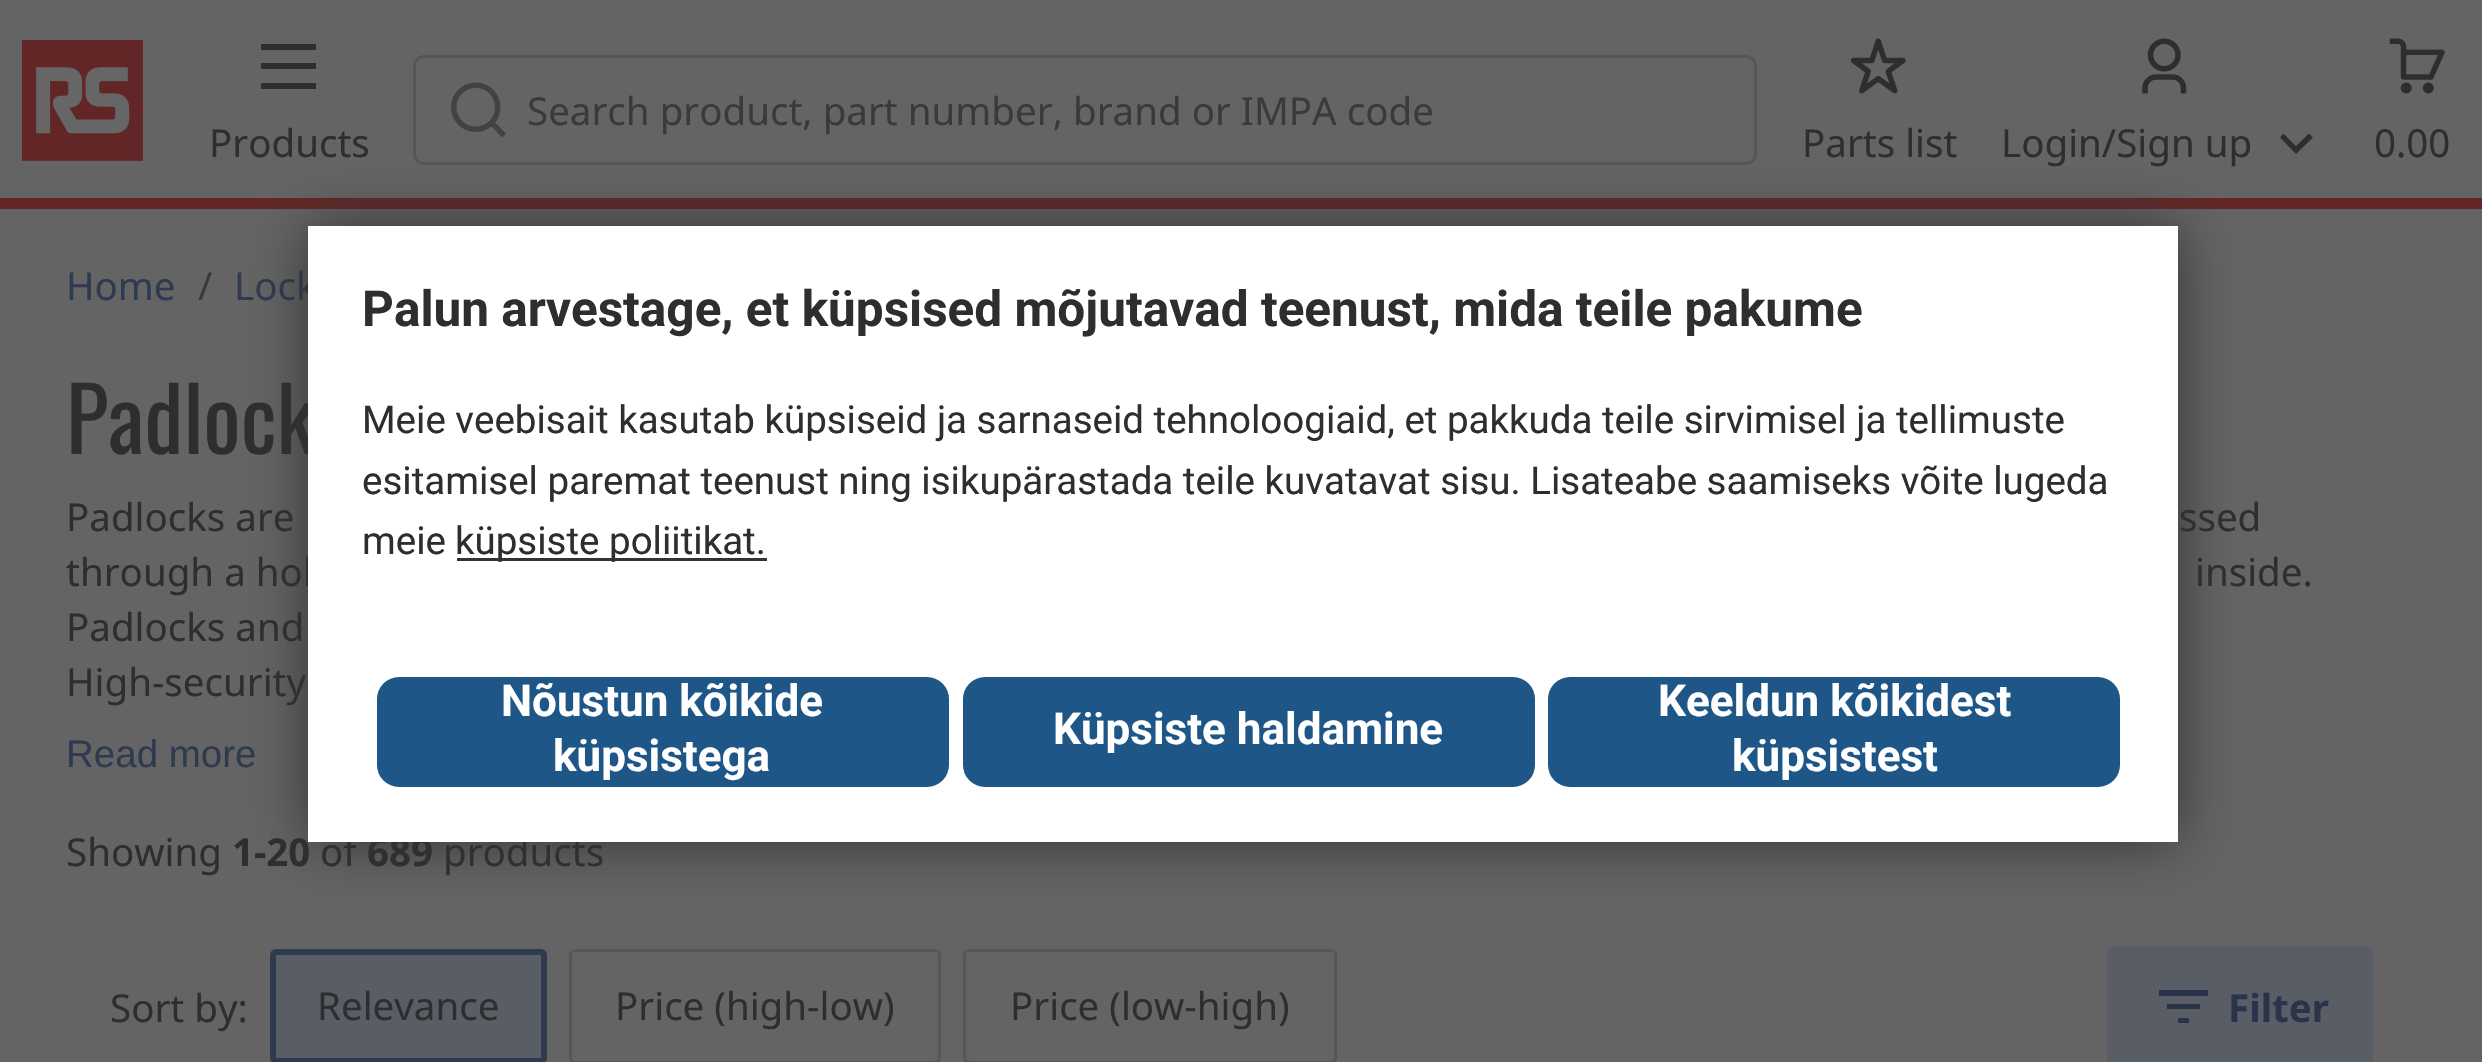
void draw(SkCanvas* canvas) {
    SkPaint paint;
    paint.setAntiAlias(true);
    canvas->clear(0xFF646464);
    paint.setColor(0xFF622626);
    canvas->drawRect(SkRect::MakeXYWH(0, 198, 2482, 11), paint);
    canvas->drawImageRect(SkImages::DeferredFromEncodedData(SkData::MakeFromFileName("img1.png")), SkRect::MakeXYWH(22, 40, 121, 121), SkSamplingOptions());
    paint.setStyle(SkPaint::kStroke_Style);
    paint.setStrokeWidth(3);
    paint.setColor(0xFF565656);
    canvas->drawRoundRect(SkRect::MakeXYWH(414.5f, 56.5f, 1341, 107), 9.5f, 9.5f, paint);
    canvas->drawImageRect(SkImages::DeferredFromEncodedData(SkData::MakeFromFileName("img2.png")), SkRect::MakeXYWH(451, 82, 55, 56), SkSamplingOptions());
    SkFont font1(fontMgr->matchFamilyStyle("Noto Sans", SkFontStyle::Normal()), 38.5f);
    font1.setSubpixel(true);
    paint.setStyle(SkPaint::kFill_Style);
    paint.setColor(0xFF3A3A3A);
    canvas->drawString("Search product, part number, brand or IMPA code", 527, 125, font1, paint);
    paint.setColor(0xFF2E2E2E);
    canvas->drawRect(SkRect::MakeXYWH(261, 44, 55, 6), paint);
    canvas->drawRect(SkRect::MakeXYWH(261, 63, 55, 6), paint);
    canvas->drawRect(SkRect::MakeXYWH(261, 83, 55, 6), paint);
    canvas->drawString("Products", 209, 157, font1, paint);
    canvas->drawImageRect(SkImages::DeferredFromEncodedData(SkData::MakeFromFileName("img3.png")), SkRect::MakeXYWH(1850, 38, 56, 56), SkSamplingOptions());
    canvas->drawString("Parts list", 1802, 157, font1, paint);
    canvas->drawImageRect(SkImages::DeferredFromEncodedData(SkData::MakeFromFileName("img4.png")), SkRect::MakeXYWH(2142, 38, 45, 56), SkSamplingOptions());
    canvas->drawString("Login/Sign up", 2001, 157, font1, paint);
    canvas->drawPath(SkPathBuilder().moveTo(2309, 133.5f).lineTo(2296, 146).lineTo(2283.5f, 133.5f).lineTo(2280, 137.5f).lineTo(2296, 154).lineTo(2313, 137.5f).close().detach(), paint);
    canvas->drawImageRect(SkImages::DeferredFromEncodedData(SkData::MakeFromFileName("img5.png")), SkRect::MakeXYWH(2389, 38, 56, 56), SkSamplingOptions());
    canvas->drawString("0.00", 2374, 157, font1, paint);
    paint.setColor(0xFF2F3A50);
    canvas->drawString("Home", 66, 300, font1, paint);
    paint.setColor(0xFF3A3A3A);
    canvas->drawString("/", 198, 300, font1, paint);
    paint.setColor(0xFF2F3A50);
    canvas->drawString("Lock", 234, 300, font1, paint);
    SkFont font2(fontMgr->matchFamilyStyle("Oswald", SkFontStyle::Normal()), 88);
    font2.setSubpixel(true);
    paint.setColor(0xFF2E2E2E);
    canvas->drawString("Padlock", 66, 454, font2, paint);
    canvas->drawString("Padlocks are", 66, 531, font1, paint);
    canvas->drawString("ssed", 2179, 531, font1, paint);
    canvas->drawString("through a hol", 66, 586, font1, paint);
    canvas->drawString("inside.", 2195, 586, font1, paint);
    canvas->drawString("Padlocks and", 66, 641, font1, paint);
    canvas->drawString("High-security", 66, 696, font1, paint);
    SkFont font3(fontMgr->matchFamilyStyle("Liberation Sans", SkFontStyle::Normal()), 38.5f);
    font3.setSubpixel(true);
    paint.setColor(0xFF2F3A50);
    canvas->drawString("Read more", 66, 767, font3, paint);
    paint.setColor(0xFF2E2E2E);
    canvas->drawString("Showing", 66, 866, font1, paint);
    SkFont font4(fontMgr->matchFamilyStyle("Noto Sans", SkFontStyle::Bold()), 38.5f);
    font4.setSubpixel(true);
    canvas->drawString("1-20", 232, 866, font4, paint);
    canvas->drawString("of", 320, 866, font1, paint);
    canvas->drawString("689", 367, 866, font4, paint);
    canvas->drawString("products", 443, 866, font1, paint);
    canvas->drawString("Sort by:", 110, 1022, font1, paint);
    paint.setColor(0xFF595E66);
    canvas->drawRoundRect(SkRect::MakeXYWH(273, 952, 271, 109), 3, 3, paint);
    paint.setStyle(SkPaint::kStroke_Style);
    paint.setStrokeWidth(6);
    paint.setColor(0xFF2F3A50);
    canvas->drawRoundRect(SkRect::MakeXYWH(273, 952, 271, 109), 3, 3, paint);
    paint.setStyle(SkPaint::kFill_Style);
    paint.setColor(0xFF2E2E2E);
    canvas->drawString("Relevance", 317, 1020, font1, paint);
    paint.setStyle(SkPaint::kStroke_Style);
    paint.setStrokeWidth(3);
    paint.setColor(0xFF565656);
    canvas->drawRoundRect(SkRect::MakeXYWH(570.5f, 950.5f, 369, 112), 4.5f, 4.5f, paint);
    paint.setStyle(SkPaint::kFill_Style);
    paint.setColor(0xFF2E2E2E);
    canvas->drawString("Price (high-low)", 615, 1020, font1, paint);
    paint.setStyle(SkPaint::kStroke_Style);
    paint.setColor(0xFF565656);
    canvas->drawRoundRect(SkRect::MakeXYWH(964.5f, 950.5f, 371, 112), 4.5f, 4.5f, paint);
    paint.setStyle(SkPaint::kFill_Style);
    paint.setColor(0xFF2E2E2E);
    canvas->drawString("Price (low-high)", 1010, 1020, font1, paint);
    paint.setColor(0xFF595E66);
    canvas->drawRoundRect(SkRect::MakeXYWH(2107, 946, 266, 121), 6, 6, paint);
    paint.setColor(0xFF29344A);
    canvas->drawPath(SkPathBuilder().moveTo(2178, 1023).lineTo(2189, 1023).lineTo(2189, 1018).lineTo(2178, 1018).close().moveTo(2159, 990).lineTo(2159, 996).lineTo(2208, 996).lineTo(2208, 990).close().moveTo(2167, 1009).lineTo(2200, 1009).lineTo(2200, 1004).lineTo(2167, 1004).close().detach(), paint);
    canvas->drawString("Filter", 2228, 1022, font4, paint);
    paint.setColor(0xFF333333);
    paint.setMaskFilter(SkMaskFilter::MakeBlur(kNormal_SkBlurStyle, 27.5f));
    canvas->drawRect(SkRect::MakeXYWH(308, 226, 1870, 616), paint);
    paint.setMaskFilter(nullptr);
    paint.setColor(0xFFFFFFFF);
    canvas->drawRect(SkRect::MakeXYWH(308, 226, 1870, 616), paint);
    SkFont font5(fontMgr->matchFamilyStyle("Roboto", SkFontStyle::Bold()), 49.5f);
    font5.setSubpixel(true);
    paint.setColor(0xFF2E2E2E);
    canvas->drawString("Palun arvestage, et küpsised mõjutavad teenust, mida teile pakume", 362, 326, font5, paint);
    SkFont font6(fontMgr->matchFamilyStyle("Roboto", SkFontStyle::Normal()), 38.5f);
    font6.setSubpixel(true);
    canvas->drawString("Meie veebisait kasutab küpsiseid ja sarnaseid tehnoloogiaid, et pakkuda teile sirvimisel ja tellimuste", 362, 433, font6, paint);
    canvas->drawString("esitamisel paremat teenust ning isikupärastada teile kuvatavat sisu. Lisateabe saamiseks võite lugeda", 362, 494, font6, paint);
    canvas->drawString("meie", 362, 554, font6, paint);
    paint.setColor(0xFF333333);
    canvas->drawRect(SkRect::MakeXYWH(457, 558, 310, 3), paint);
    paint.setColor(0xFF2E2E2E);
    canvas->drawString("küpsiste poliitikat.", 455, 554, font6, paint);
    paint.setColor(0xFF1E5787);
    canvas->drawRoundRect(SkRect::MakeXYWH(377, 677, 572, 110), 22, 22, paint);
    SkFont font7(fontMgr->matchFamilyStyle("Roboto", SkFontStyle::Bold()), 44);
    font7.setSubpixel(true);
    paint.setColor(0xFFFFFFFF);
    canvas->drawString("Nõustun kõikide", 501, 716, font7, paint);
    canvas->drawString("küpsistega", 553, 771, font7, paint);
    paint.setColor(0xFF1E5787);
    canvas->drawRoundRect(SkRect::MakeXYWH(963, 677, 572, 110), 22, 22, paint);
    paint.setColor(0xFFFFFFFF);
    canvas->drawString("Küpsiste haldamine", 1053, 744, font7, paint);
    paint.setColor(0xFF1E5787);
    canvas->drawRoundRect(SkRect::MakeXYWH(1548, 677, 572, 110), 22, 22, paint);
    paint.setColor(0xFFFFFFFF);
    canvas->drawString("Keeldun kõikidest", 1658, 716, font7, paint);
    canvas->drawString("küpsistest", 1732, 771, font7, paint);
}
